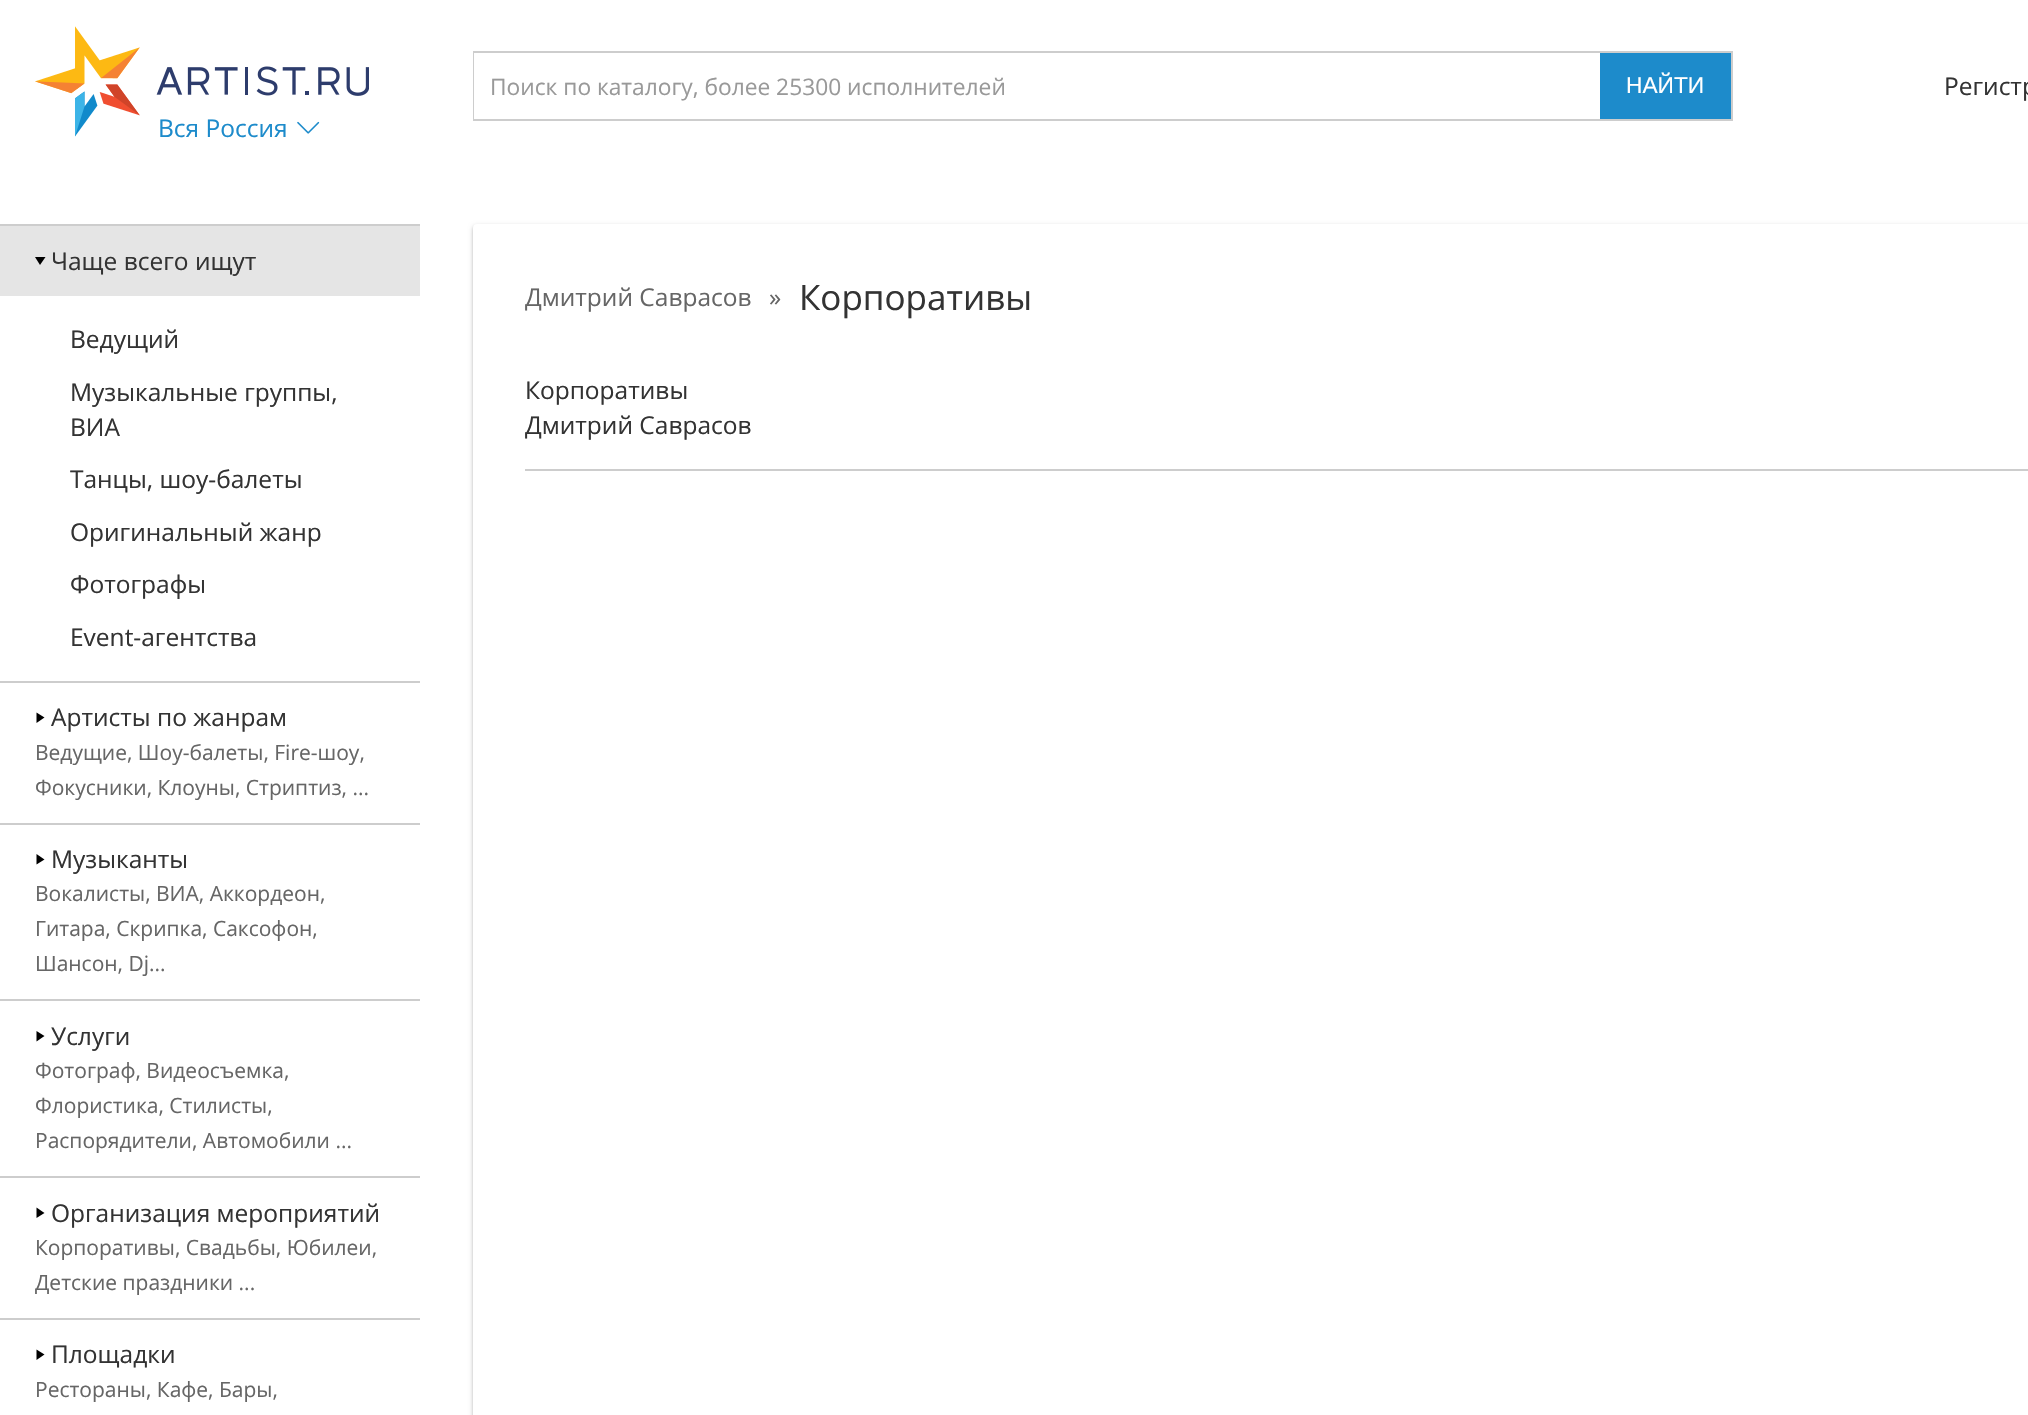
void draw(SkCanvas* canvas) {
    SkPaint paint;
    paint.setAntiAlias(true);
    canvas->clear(0xFFFFFFFF);
    paint.setStyle(SkPaint::kStroke_Style);
    paint.setStrokeWidth(2);
    paint.setColor(0xFFCDCDCD);
    canvas->drawRect(SkRect::MakeXYWH(474, 52, 1258, 68), paint);
    paint.setStyle(SkPaint::kFill_Style);
    paint.setColor(0xFFFFFFFF);
    canvas->drawRect(SkRect::MakeXYWH(474, 53, 1, 66), paint);
    SkFont font1(fontMgr->matchFamilyStyle("Open Sans", SkFontStyle::Normal()), 22.75f);
    font1.setSubpixel(true);
    paint.setColor(0xFF999999);
    canvas->drawString("Поиск по каталогу, более 25300 исполнителей", 490, 95, font1, paint);
    paint.setColor(0xFF1D8BCB);
    canvas->drawRect(SkRect::MakeXYWH(1600, 53, 131, 66), paint);
    SkFont font2(fontMgr->matchFamilyStyle("Liberation Sans", SkFontStyle::Normal()), 22.75f);
    font2.setSubpixel(true);
    paint.setColor(0xFFFFFFFF);
    canvas->drawString("НАЙТИ", 1626, 93, font2, paint);
    SkFont font3(fontMgr->matchFamilyStyle("Open Sans", SkFontStyle::Normal()), 24.5f);
    font3.setSubpixel(true);
    paint.setColor(0xFF333333);
    canvas->drawString("Регистр", 1944, 95, font3, paint);
    canvas->drawImageRect(SkImages::DeferredFromEncodedData(SkData::MakeFromFileName("img1.png")), SkRect::MakeXYWH(35, 26, 334, 111), SkSamplingOptions());
    paint.setColor(0xFF1D8BCB);
    canvas->drawString("Вся Россия", 158, 137, font3, paint);
    canvas->drawImageRect(SkImages::DeferredFromEncodedData(SkData::MakeFromFileName("img2.png")), SkRect::MakeXYWH(297, 121, 23, 13), SkSamplingOptions());
    paint.setColor(0xFFCDCDCD);
    canvas->drawRect(SkRect::MakeXYWH(0, 224, 420, 2), paint);
    paint.setColor(0xFFE5E5E5);
    canvas->drawRect(SkRect::MakeXYWH(0, 226, 420, 70), paint);
    paint.setColor(0xFF000000);
    canvas->drawPath(SkPathBuilder().moveTo(45.5f, 257).lineTo(35, 257).lineTo(40, 265).close().detach(), paint);
    paint.setColor(0xFF333333);
    canvas->drawString("Чаще всего ищут", 51, 270, font3, paint);
    canvas->drawString("Ведущий", 70, 348, font3, paint);
    canvas->drawString("Музыкальные группы,", 70, 401, font3, paint);
    canvas->drawString("ВИА", 70, 436, font3, paint);
    canvas->drawString("Танцы, шоу-балеты", 70, 488, font3, paint);
    canvas->drawString("Оригинальный жанр", 70, 541, font3, paint);
    canvas->drawString("Фотографы", 70, 593, font3, paint);
    canvas->drawString("Event-агентства", 70, 646, font3, paint);
    paint.setColor(0xFFCDCDCD);
    canvas->drawRect(SkRect::MakeXYWH(0, 681, 420, 2), paint);
    paint.setColor(0xFF000000);
    canvas->drawPath(SkPathBuilder().moveTo(36.5f, 712.5f).lineTo(36.5f, 723).lineTo(44.5f, 717.5f).close().detach(), paint);
    paint.setColor(0xFF333333);
    canvas->drawString("Артисты по жанрам", 51, 726, font3, paint);
    SkFont font4(fontMgr->matchFamilyStyle("Open Sans", SkFontStyle::Normal()), 21);
    font4.setSubpixel(true);
    paint.setColor(0xFF666666);
    canvas->drawString("Ведущие, Шоу-балеты, Fire-шоу,", 35, 760, font4, paint);
    canvas->drawString("Фокусники, Клоуны, Стриптиз, ...", 35, 795, font4, paint);
    paint.setColor(0xFFCDCDCD);
    canvas->drawRect(SkRect::MakeXYWH(0, 823, 420, 2), paint);
    paint.setColor(0xFF000000);
    canvas->drawPath(SkPathBuilder().moveTo(36.5f, 854).lineTo(36.5f, 864.5f).lineTo(44.5f, 859.5f).close().detach(), paint);
    paint.setColor(0xFF333333);
    canvas->drawString("Музыканты", 51, 868, font3, paint);
    paint.setColor(0xFF666666);
    canvas->drawString("Вокалисты, ВИА, Аккордеон,", 35, 901, font4, paint);
    canvas->drawString("Гитара, Скрипка, Саксофон,", 35, 936, font4, paint);
    canvas->drawString("Шансон, Dj...", 35, 971, font4, paint);
    paint.setColor(0xFFCDCDCD);
    canvas->drawRect(SkRect::MakeXYWH(0, 999, 420, 2), paint);
    paint.setColor(0xFF000000);
    canvas->drawPath(SkPathBuilder().moveTo(36.5f, 1031).lineTo(36.5f, 1041.5f).lineTo(44.5f, 1036).close().detach(), paint);
    paint.setColor(0xFF333333);
    canvas->drawString("Услуги", 51, 1045, font3, paint);
    paint.setColor(0xFF666666);
    canvas->drawString("Фотограф, Видеосъемка,", 35, 1078, font4, paint);
    canvas->drawString("Флористика, Стилисты,", 35, 1113, font4, paint);
    canvas->drawString("Распорядители, Автомобили ...", 35, 1148, font4, paint);
    paint.setColor(0xFFCDCDCD);
    canvas->drawRect(SkRect::MakeXYWH(0, 1176, 420, 2), paint);
    paint.setColor(0xFF000000);
    canvas->drawPath(SkPathBuilder().moveTo(36.5f, 1207.5f).lineTo(36.5f, 1218).lineTo(44.5f, 1213).close().detach(), paint);
    paint.setColor(0xFF333333);
    canvas->drawString("Организация мероприятий", 51, 1222, font3, paint);
    paint.setColor(0xFF666666);
    canvas->drawString("Корпоративы, Свадьбы, Юбилеи,", 35, 1255, font4, paint);
    canvas->drawString("Детские праздники ...", 35, 1290, font4, paint);
    paint.setColor(0xFFCDCDCD);
    canvas->drawRect(SkRect::MakeXYWH(0, 1318, 420, 2), paint);
    paint.setColor(0xFF000000);
    canvas->drawPath(SkPathBuilder().moveTo(36.5f, 1349.5f).lineTo(36.5f, 1360).lineTo(44.5f, 1354.5f).close().detach(), paint);
    paint.setColor(0xFF333333);
    canvas->drawString("Площадки", 51, 1363, font3, paint);
    paint.setColor(0xFF666666);
    canvas->drawString("Рестораны, Кафе, Бары,", 35, 1397, font4, paint);
    paint.setColor(0x24000000);
    paint.setMaskFilter(SkMaskFilter::MakeBlur(kNormal_SkBlurStyle, 1));
    canvas->drawRoundRect(SkRect::MakeXYWH(473, 226, 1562, 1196), 4, 4, paint);
    paint.setMaskFilter(nullptr);
    paint.setColor(0x33000000);
    paint.setMaskFilter(SkMaskFilter::MakeBlur(kNormal_SkBlurStyle, 2.5f));
    canvas->drawRoundRect(SkRect::MakeXYWH(473, 226, 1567, 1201), 4, 4, paint);
    paint.setMaskFilter(nullptr);
    paint.setColor(0xFFFFFFFF);
    canvas->drawRoundRect(SkRect::MakeXYWH(473, 224, 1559, 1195), 4, 4, paint);
    paint.setColor(0xFF666666);
    canvas->drawString("Дмитрий Саврасов", 525, 306, font3, paint);
    canvas->drawString("»", 769, 306, font3, paint);
    SkFont font5(fontMgr->matchFamilyStyle("Open Sans", SkFontStyle::Normal()), 35);
    font5.setSubpixel(true);
    paint.setColor(0xFF333333);
    canvas->drawString("Корпоративы", 799, 310, font5, paint);
    canvas->drawString("Корпоративы", 525, 399, font3, paint);
    canvas->drawString("Дмитрий Саврасов", 525, 434, font3, paint);
    paint.setColor(0xFFCDCDCD);
    canvas->drawRect(SkRect::MakeXYWH(525, 469, 1503, 2), paint);
}
